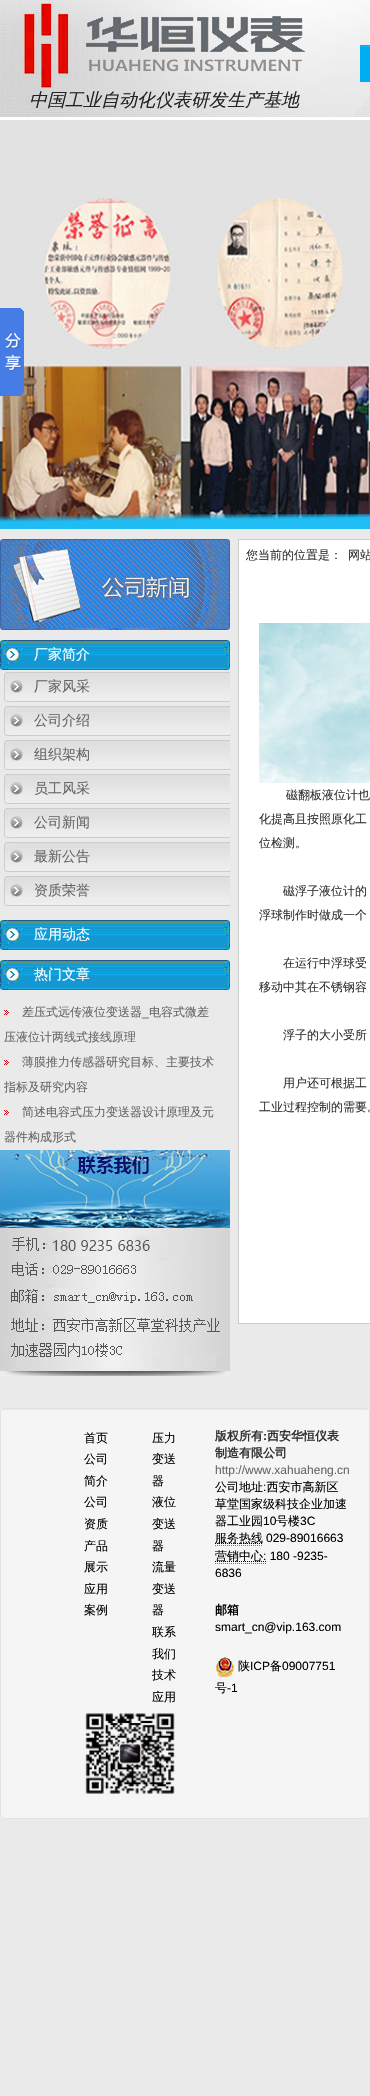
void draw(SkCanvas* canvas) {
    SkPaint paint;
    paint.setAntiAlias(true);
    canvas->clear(0xFFEAEAEA);
    canvas->drawImageRect(SkImages::DeferredFromEncodedData(SkData::MakeFromFileName("img1.png")), SkRect::MakeXYWH(0, 0, 370, 524), SkSamplingOptions());
    canvas->drawImageRect(SkImages::DeferredFromEncodedData(SkData::MakeFromFileName("img2.png")), SkRect::MakeXYWH(360, 45, 10, 37), SkSamplingOptions());
    canvas->drawImageRect(SkImages::DeferredFromEncodedData(SkData::MakeFromFileName("img3.png")), SkRect::MakeXYWH(22, 0, 283, 88), SkSamplingOptions());
    SkFont font1(fontMgr->matchFamilyStyle("WenQuanYi Zen Hei", SkFontStyle(500, SkFontStyle::kNormal_Width, SkFontStyle::kItalic_Slant)), 18);
    font1.setSubpixel(true);
    paint.setColor(0xFF222222);
    canvas->drawString("中国工业自动化仪表研发生产基地", 29, 106, font1, paint);
    canvas->drawImageRect(SkImages::DeferredFromEncodedData(SkData::MakeFromFileName("img4.png")), SkRect::MakeXYWH(0, 120, 370, 409), SkSamplingOptions());
    canvas->drawImageRect(SkImages::DeferredFromEncodedData(SkData::MakeFromFileName("img5.png")), SkRect::MakeXYWH(0, 308, 24, 88), SkSamplingOptions());
    canvas->drawImageRect(SkImages::DeferredFromEncodedData(SkData::MakeFromFileName("img6.png")), SkRect::MakeXYWH(0, 539, 230, 91), SkSamplingOptions());
    canvas->drawImageRect(SkImages::DeferredFromEncodedData(SkData::MakeFromFileName("img7.png")), SkRect::MakeXYWH(0, 640, 230, 30), SkSamplingOptions());
    SkFont font2(fontMgr->matchFamilyStyle("WenQuanYi Zen Hei", SkFontStyle(500, SkFontStyle::kNormal_Width, SkFontStyle::kUpright_Slant)), 14);
    font2.setSubpixel(true);
    paint.setColor(0xFFFFFFFF);
    canvas->drawString("厂家简介", 34, 659, font2, paint);
    canvas->drawImageRect(SkImages::DeferredFromEncodedData(SkData::MakeFromFileName("img8.png")), SkRect::MakeXYWH(4, 672, 226, 30), SkSamplingOptions());
    paint.setColor(0xFF666666);
    canvas->drawString("厂家风采", 34, 691, font2, paint);
    canvas->drawImageRect(SkImages::DeferredFromEncodedData(SkData::MakeFromFileName("img8.png")), SkRect::MakeXYWH(4, 706, 226, 30), SkSamplingOptions());
    canvas->drawString("公司介绍", 34, 725, font2, paint);
    canvas->drawImageRect(SkImages::DeferredFromEncodedData(SkData::MakeFromFileName("img8.png")), SkRect::MakeXYWH(4, 740, 226, 30), SkSamplingOptions());
    canvas->drawString("组织架构", 34, 759, font2, paint);
    canvas->drawImageRect(SkImages::DeferredFromEncodedData(SkData::MakeFromFileName("img8.png")), SkRect::MakeXYWH(4, 774, 226, 30), SkSamplingOptions());
    canvas->drawString("员工风采", 34, 793, font2, paint);
    canvas->drawImageRect(SkImages::DeferredFromEncodedData(SkData::MakeFromFileName("img8.png")), SkRect::MakeXYWH(4, 808, 226, 30), SkSamplingOptions());
    canvas->drawString("公司新闻", 34, 827, font2, paint);
    canvas->drawImageRect(SkImages::DeferredFromEncodedData(SkData::MakeFromFileName("img8.png")), SkRect::MakeXYWH(4, 842, 226, 30), SkSamplingOptions());
    canvas->drawString("最新公告", 34, 861, font2, paint);
    canvas->drawImageRect(SkImages::DeferredFromEncodedData(SkData::MakeFromFileName("img8.png")), SkRect::MakeXYWH(4, 876, 226, 30), SkSamplingOptions());
    canvas->drawString("资质荣誉", 34, 895, font2, paint);
    canvas->drawImageRect(SkImages::DeferredFromEncodedData(SkData::MakeFromFileName("img7.png")), SkRect::MakeXYWH(0, 920, 230, 30), SkSamplingOptions());
    paint.setColor(0xFFFFFFFF);
    canvas->drawString("应用动态", 34, 939, font2, paint);
    canvas->drawImageRect(SkImages::DeferredFromEncodedData(SkData::MakeFromFileName("img7.png")), SkRect::MakeXYWH(0, 960, 230, 30), SkSamplingOptions());
    canvas->drawString("热门文章", 34, 979, font2, paint);
    canvas->drawImageRect(SkImages::DeferredFromEncodedData(SkData::MakeFromFileName("img9.png")), SkRect::MakeXYWH(4, 1010, 5, 5), SkSamplingOptions());
    SkFont font3(fontMgr->matchFamilyStyle("WenQuanYi Zen Hei", SkFontStyle(500, SkFontStyle::kNormal_Width, SkFontStyle::kUpright_Slant)), 12);
    font3.setSubpixel(true);
    paint.setColor(0xFF666666);
    canvas->drawString("差压式远传液位变送器", 22, 1016, font3, paint);
    SkFont font4(fontMgr->matchFamilyStyle("Liberation Sans", SkFontStyle::Normal()), 12);
    font4.setSubpixel(true);
    canvas->drawString("_", 142, 1016, font4, paint);
    canvas->drawString("电容式微差", 149, 1016, font3, paint);
    canvas->drawString("压液位计两线式接线原理", 4, 1041, font3, paint);
    canvas->drawImageRect(SkImages::DeferredFromEncodedData(SkData::MakeFromFileName("img9.png")), SkRect::MakeXYWH(4, 1060, 5, 5), SkSamplingOptions());
    canvas->drawString("薄膜推力传感器研究目标、主要技术", 22, 1066, font3, paint);
    canvas->drawString("指标及研究内容", 4, 1091, font3, paint);
    canvas->drawImageRect(SkImages::DeferredFromEncodedData(SkData::MakeFromFileName("img9.png")), SkRect::MakeXYWH(4, 1110, 5, 5), SkSamplingOptions());
    canvas->drawString("简述电容式压力变送器设计原理及元", 22, 1116, font3, paint);
    canvas->drawString("器件构成形式", 4, 1141, font3, paint);
    canvas->drawImageRect(SkImages::DeferredFromEncodedData(SkData::MakeFromFileName("img10.png")), SkRect::MakeXYWH(0, 1150, 230, 226), SkSamplingOptions());
    paint.setColor(0xFFFFFFFF);
    canvas->drawRect(SkRect::MakeXYWH(238.5f, 539.5f, 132, 784), paint);
    paint.setStyle(SkPaint::kStroke_Style);
    paint.setStrokeWidth(1);
    paint.setColor(0xFFCCCCCC);
    canvas->drawRect(SkRect::MakeXYWH(238.5f, 539.5f, 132, 784), paint);
    paint.setStyle(SkPaint::kFill_Style);
    paint.setColor(0xFF333333);
    canvas->drawString("您当前的位置是：", 246, 559, font3, paint);
    canvas->drawString("网站", 348, 559, font3, paint);
    canvas->drawImageRect(SkImages::DeferredFromEncodedData(SkData::MakeFromFileName("img11.png")), SkRect::MakeXYWH(259, 623, 111, 160), SkSamplingOptions());
    canvas->drawString("磁翻板液位计也", 286, 799, font3, paint);
    canvas->drawString("化提高且按照原化工", 259, 823, font3, paint);
    canvas->drawString("位检测。", 259, 847, font3, paint);
    canvas->drawString("磁浮子液位计的", 283, 895, font3, paint);
    canvas->drawString("浮球制作时做成一个", 259, 919, font3, paint);
    canvas->drawString("在运行中浮球受", 283, 967, font3, paint);
    canvas->drawString("移动中其在不锈钢容", 259, 991, font3, paint);
    canvas->drawString("浮子的大小受所", 283, 1039, font3, paint);
    canvas->drawString("用户还可根据工", 283, 1087, font3, paint);
    canvas->drawString("工业过程控制的需要。", 259, 1111, font3, paint);
    paint.setColor(0xFFF5F5F5);
    canvas->drawRoundRect(SkRect::MakeXYWH(0, 1408, 370, 411), 4, 4, paint);
    paint.setColor(0xFFE9E9E9);
    canvas->drawPath(SkPathBuilder().moveTo(4, 1410).lineTo(366, 1410).cubicTo(368, 1410, 369, 1411, 369, 1413).cubicTo(369, 1411, 368, 1409, 366, 1409).lineTo(4, 1409).lineTo(2, 1410).lineTo(1, 1413).cubicTo(1, 1411, 2, 1410, 4, 1410).close().detach(), paint);
    paint.setStyle(SkPaint::kStroke_Style);
    paint.setColor(0xFFE3E3E3);
    canvas->drawRoundRect(SkRect::MakeXYWH(0.5f, 1408.5f, 369, 410), 3.5f, 3.5f, paint);
    paint.setStyle(SkPaint::kFill_Style);
    paint.setColor(0xFF000000);
    canvas->drawString("首页", 84, 1442, font3, paint);
    canvas->drawString("公司", 84, 1463, font3, paint);
    canvas->drawString("简介", 84, 1485, font3, paint);
    canvas->drawString("公司", 84, 1506, font3, paint);
    canvas->drawString("资质", 84, 1528, font3, paint);
    canvas->drawString("产品", 84, 1550, font3, paint);
    canvas->drawString("展示", 84, 1571, font3, paint);
    canvas->drawString("应用", 84, 1593, font3, paint);
    canvas->drawString("案例", 84, 1614, font3, paint);
    canvas->drawString("压力", 152, 1442, font3, paint);
    canvas->drawString("变送", 152, 1463, font3, paint);
    canvas->drawString("器", 152, 1485, font3, paint);
    canvas->drawString("液位", 152, 1506, font3, paint);
    canvas->drawString("变送", 152, 1528, font3, paint);
    canvas->drawString("器", 152, 1550, font3, paint);
    canvas->drawString("流量", 152, 1571, font3, paint);
    canvas->drawString("变送", 152, 1593, font3, paint);
    canvas->drawString("器", 152, 1614, font3, paint);
    canvas->drawString("联系", 152, 1636, font3, paint);
    canvas->drawString("我们", 152, 1658, font3, paint);
    canvas->drawString("技术", 152, 1679, font3, paint);
    canvas->drawString("应用", 152, 1701, font3, paint);
    canvas->drawImageRect(SkImages::DeferredFromEncodedData(SkData::MakeFromFileName("img12.png")), SkRect::MakeXYWH(85, 1713, 90, 81), SkSamplingOptions());
    SkFont font5(fontMgr->matchFamilyStyle("WenQuanYi Zen Hei", SkFontStyle::Bold()), 12);
    font5.setSubpixel(true);
    paint.setColor(0xFF333333);
    canvas->drawString("版权所有", 215, 1440, font5, paint);
    SkFont font6(fontMgr->matchFamilyStyle("Liberation Sans", SkFontStyle::Bold()), 12);
    font6.setSubpixel(true);
    canvas->drawString(":", 263, 1440, font6, paint);
    canvas->drawString("西安华恒仪表", 267, 1440, font5, paint);
    canvas->drawString("制造有限公司", 215, 1457, font5, paint);
    paint.setColor(0xFF666666);
    canvas->drawString("http://www.xahuaheng.cn", 215, 1474, font4, paint);
    paint.setColor(0xFF000000);
    canvas->drawString("公司地址 西安市高新区", 215, 1491, font3, paint);
    canvas->drawString(":", 263, 1491, font4, paint);
    canvas->drawString("草堂国家级科技企业加速", 215, 1508, font3, paint);
    canvas->drawString("器工业园", 215, 1525, font3, paint);
    canvas->drawString("10", 263, 1525, font4, paint);
    canvas->drawString("号楼", 276, 1525, font3, paint);
    canvas->drawString("3C", 300, 1525, font4, paint);
    paint.setStyle(SkPaint::kStroke_Style);
    paint.setPathEffect(SkDashPathEffect::Make({{1, 1}}, 0));
    canvas->drawPath(SkPathBuilder().moveTo(215, 1543.5f).lineTo(263, 1543.5f).detach(), paint);
    paint.setPathEffect(nullptr);
    paint.setStyle(SkPaint::kFill_Style);
    canvas->drawString("服务热线", 215, 1542, font3, paint);
    paint.setStyle(SkPaint::kStroke_Style);
    paint.setColor(0xFF777777);
    paint.setPathEffect(SkDashPathEffect::Make({{1, 1}}, 0));
    canvas->drawPath(SkPathBuilder().moveTo(215, 1545.5f).lineTo(263, 1545.5f).detach(), paint);
    paint.setPathEffect(nullptr);
    paint.setStyle(SkPaint::kFill_Style);
    paint.setColor(0xFF000000);
    canvas->drawString("029-89016663", 266, 1542, font4, paint);
    paint.setStyle(SkPaint::kStroke_Style);
    paint.setPathEffect(SkDashPathEffect::Make({{1, 1}}, 0));
    canvas->drawPath(SkPathBuilder().moveTo(215, 1561.5f).lineTo(266.5f, 1561.5f).detach(), paint);
    paint.setPathEffect(nullptr);
    paint.setStyle(SkPaint::kFill_Style);
    canvas->drawString("营销中心", 215, 1560, font3, paint);
    canvas->drawString(": 180 -9235-", 263, 1560, font4, paint);
    paint.setStyle(SkPaint::kStroke_Style);
    paint.setColor(0xFF777777);
    paint.setPathEffect(SkDashPathEffect::Make({{1, 1}}, 0));
    canvas->drawPath(SkPathBuilder().moveTo(215, 1563.5f).lineTo(266, 1563.5f).detach(), paint);
    paint.setPathEffect(nullptr);
    paint.setStyle(SkPaint::kFill_Style);
    paint.setColor(0xFF000000);
    canvas->drawString("6836", 215, 1577, font4, paint);
    canvas->drawString("邮箱", 215, 1614, font5, paint);
    canvas->drawString("smart_cn@vip.163.com", 215, 1631, font4, paint);
    canvas->drawImageRect(SkImages::DeferredFromEncodedData(SkData::MakeFromFileName("img13.png")), SkRect::MakeXYWH(216, 1657, 18, 20), SkSamplingOptions());
    canvas->drawString("陕", 238, 1670, font3, paint);
    canvas->drawString("ICP", 250, 1670, font4, paint);
    canvas->drawString("备", 270, 1670, font3, paint);
    canvas->drawString("09007751", 282, 1670, font4, paint);
    canvas->drawString("号", 215, 1692, font3, paint);
    canvas->drawString("-1", 227, 1692, font4, paint);
}
